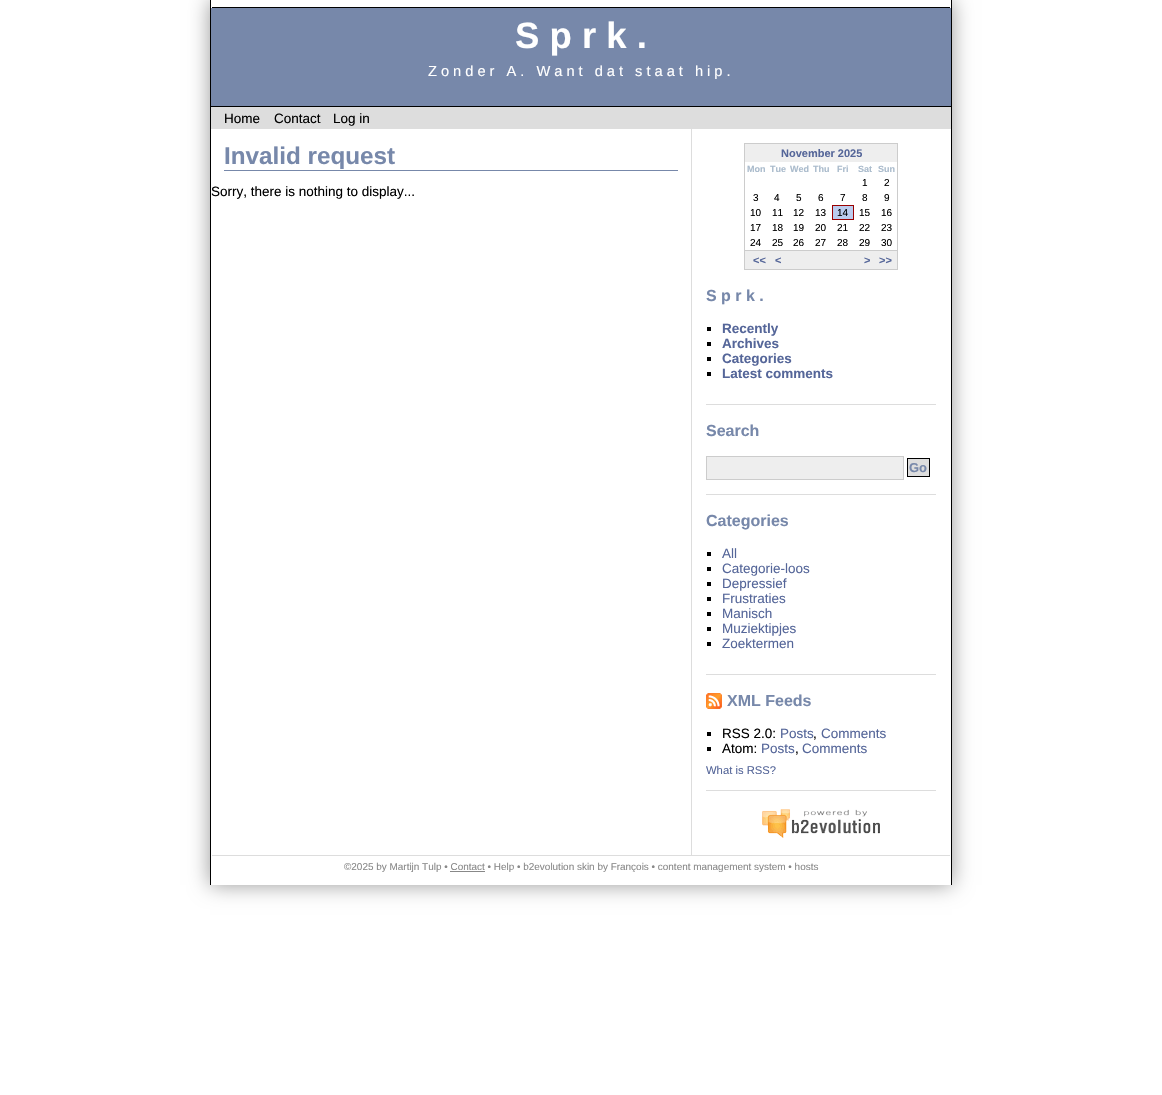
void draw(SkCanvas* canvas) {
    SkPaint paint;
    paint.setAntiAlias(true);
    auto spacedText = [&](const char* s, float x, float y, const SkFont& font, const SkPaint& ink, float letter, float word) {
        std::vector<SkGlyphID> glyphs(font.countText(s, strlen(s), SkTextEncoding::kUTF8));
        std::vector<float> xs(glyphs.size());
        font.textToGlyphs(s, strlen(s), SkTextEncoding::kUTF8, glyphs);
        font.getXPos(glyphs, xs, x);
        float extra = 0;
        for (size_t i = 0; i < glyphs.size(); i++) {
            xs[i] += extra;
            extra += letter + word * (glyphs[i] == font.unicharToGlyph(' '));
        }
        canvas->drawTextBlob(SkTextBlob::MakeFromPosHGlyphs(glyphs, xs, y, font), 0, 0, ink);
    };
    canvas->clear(0xFFFFFFFF);
    canvas->save();
    canvas->clipPath(SkPathBuilder(SkPathFillType::kEvenOdd).moveTo(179, 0).lineTo(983, 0).lineTo(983, 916).lineTo(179, 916).close().moveTo(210, 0).lineTo(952, 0).lineTo(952, 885).lineTo(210, 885).close().detach(), true);
    paint.setColor(0x66000000);
    paint.setMaskFilter(SkMaskFilter::MakeBlur(kNormal_SkBlurStyle, 10));
    canvas->drawRect(SkRect::MakeXYWH(210, 0, 742, 885), paint);
    paint.setMaskFilter(nullptr);
    canvas->restore();
    paint.setColor(0xFF000000);
    canvas->drawRect(SkRect::MakeXYWH(951, 0, 1, 885), paint);
    canvas->drawRect(SkRect::MakeXYWH(210, 0, 1, 885), paint);
    canvas->drawRect(SkRect::MakeXYWH(212, 7, 738, 1), paint);
    paint.setColor(0xFF7788AA);
    canvas->drawRect(SkRect::MakeXYWH(211, 8, 740, 98), paint);
    paint.setColor(0xFF000000);
    canvas->drawRect(SkRect::MakeXYWH(211, 106, 740, 1), paint);
    SkFont font1(fontMgr->matchFamilyStyle("Liberation Sans", SkFontStyle::Bold()), 36.5f);
    font1.setSubpixel(true);
    paint.setColor(0xFFFFFFFF);
    canvas->drawString("S p r k .", 515, 48, font1, paint);
    SkFont font2(fontMgr->matchFamilyStyle("Liberation Sans", SkFontStyle::Normal()), 14.65f);
    font2.setSubpixel(true);
    spacedText("Zonder A. Want dat staat hip.", 428, 76, font2, paint, 4, 0);
    paint.setColor(0xFFDDDDDD);
    canvas->drawRect(SkRect::MakeXYWH(211, 107, 740, 22), paint);
    SkFont font3(fontMgr->matchFamilyStyle("Liberation Sans", SkFontStyle::Normal()), 13.5f);
    font3.setSubpixel(true);
    paint.setColor(0xFF000000);
    canvas->drawString("Home", 224, 123, font3, paint);
    canvas->drawString("Contact", 274, 123, font3, paint);
    canvas->drawString("Log in", 333, 123, font3, paint);
    paint.setColor(0xFF7788AA);
    canvas->drawRect(SkRect::MakeXYWH(224, 170, 454, 1), paint);
    SkFont font4(fontMgr->matchFamilyStyle("Liberation Sans", SkFontStyle::Bold()), 24.25f);
    font4.setSubpixel(true);
    canvas->drawString("Invalid request", 224, 164, font4, paint);
    paint.setColor(0xFF000000);
    canvas->drawString("Sorry, there is nothing to display...", 211, 196, font3, paint);
    paint.setColor(0xFFDDDDDD);
    canvas->drawRect(SkRect::MakeXYWH(691, 129, 1, 726), paint);
    paint.setStyle(SkPaint::kStroke_Style);
    paint.setStrokeWidth(1);
    paint.setColor(0xFFCCCCCC);
    canvas->drawRect(SkRect::MakeXYWH(744.5f, 143.5f, 153, 126), paint);
    paint.setStyle(SkPaint::kFill_Style);
    paint.setColor(0xFFEEEEEE);
    canvas->drawRect(SkRect::MakeXYWH(745, 144, 152, 18), paint);
    SkFont font5(fontMgr->matchFamilyStyle("Liberation Sans", SkFontStyle::Bold()), 11);
    font5.setSubpixel(true);
    paint.setColor(0xFF556699);
    canvas->drawString("November 2025", 781, 157, font5, paint);
    SkFont font6(fontMgr->matchFamilyStyle("Liberation Sans", SkFontStyle::Bold()), 9);
    font6.setSubpixel(true);
    paint.setColor(0xFFAABBCC);
    canvas->drawString("Mon", 747, 172, font6, paint);
    canvas->drawString("Tue", 770, 172, font6, paint);
    canvas->drawString("Wed", 790, 172, font6, paint);
    canvas->drawString("Thu", 813, 172, font6, paint);
    canvas->drawString("Fri", 837, 172, font6, paint);
    canvas->drawString("Sat", 858, 172, font6, paint);
    canvas->drawString("Sun", 878, 172, font6, paint);
    SkFont font7(fontMgr->matchFamilyStyle("Liberation Sans", SkFontStyle::Normal()), 10);
    font7.setSubpixel(true);
    paint.setColor(0xFF000000);
    canvas->drawString("1", 862, 186, font7, paint);
    canvas->drawString("2", 884, 186, font7, paint);
    canvas->drawString("3", 753, 201, font7, paint);
    canvas->drawString("4", 774, 201, font7, paint);
    canvas->drawString("5", 796, 201, font7, paint);
    canvas->drawString("6", 818, 201, font7, paint);
    canvas->drawString("7", 840, 201, font7, paint);
    canvas->drawString("8", 862, 201, font7, paint);
    canvas->drawString("9", 884, 201, font7, paint);
    canvas->drawString("10", 750, 216, font7, paint);
    canvas->drawString("11", 772, 216, font7, paint);
    canvas->drawString("12", 793, 216, font7, paint);
    canvas->drawString("13", 815, 216, font7, paint);
    paint.setColor(0xFFBBCCEE);
    canvas->drawRect(SkRect::MakeXYWH(832.5f, 205.5f, 21, 14), paint);
    paint.setStyle(SkPaint::kStroke_Style);
    paint.setColor(0xFF990000);
    canvas->drawRect(SkRect::MakeXYWH(832.5f, 205.5f, 21, 14), paint);
    paint.setStyle(SkPaint::kFill_Style);
    paint.setColor(0xFF000000);
    canvas->drawString("14", 837, 216, font7, paint);
    canvas->drawString("15", 859, 216, font7, paint);
    canvas->drawString("16", 881, 216, font7, paint);
    canvas->drawString("17", 750, 231, font7, paint);
    canvas->drawString("18", 772, 231, font7, paint);
    canvas->drawString("19", 793, 231, font7, paint);
    canvas->drawString("20", 815, 231, font7, paint);
    canvas->drawString("21", 837, 231, font7, paint);
    canvas->drawString("22", 859, 231, font7, paint);
    canvas->drawString("23", 881, 231, font7, paint);
    canvas->drawString("24", 750, 246, font7, paint);
    canvas->drawString("25", 772, 246, font7, paint);
    canvas->drawString("26", 793, 246, font7, paint);
    canvas->drawString("27", 815, 246, font7, paint);
    canvas->drawString("28", 837, 246, font7, paint);
    canvas->drawString("29", 859, 246, font7, paint);
    canvas->drawString("30", 881, 246, font7, paint);
    paint.setColor(0xFFEEEEEE);
    canvas->drawRect(SkRect::MakeXYWH(745, 251, 152, 18), paint);
    paint.setColor(0xFFCCCCCC);
    canvas->drawRect(SkRect::MakeXYWH(745, 250, 152, 1), paint);
    paint.setColor(0xFF556699);
    canvas->drawString("<<", 753, 264, font5, paint);
    canvas->drawString("<", 775, 264, font5, paint);
    canvas->drawString(">", 864, 264, font5, paint);
    canvas->drawString(">>", 879, 264, font5, paint);
    SkFont font8(fontMgr->matchFamilyStyle("Liberation Sans", SkFontStyle::Bold()), 16);
    font8.setSubpixel(true);
    paint.setColor(0xFF7788AA);
    canvas->drawString("S p r k .", 706, 301, font8, paint);
    paint.setColor(0xFFDDDDDD);
    canvas->drawRect(SkRect::MakeXYWH(706, 404, 230, 1), paint);
    paint.setColor(0xFF000000);
    canvas->drawRect(SkRect::MakeXYWH(707, 327, 4, 4), paint);
    SkFont font9(fontMgr->matchFamilyStyle("Liberation Sans", SkFontStyle::Bold()), 13.5f);
    font9.setSubpixel(true);
    paint.setColor(0xFF556699);
    canvas->drawString("Recently", 722, 333, font9, paint);
    paint.setColor(0xFF000000);
    canvas->drawRect(SkRect::MakeXYWH(707, 342, 4, 4), paint);
    paint.setColor(0xFF556699);
    canvas->drawString("Archives", 722, 348, font9, paint);
    paint.setColor(0xFF000000);
    canvas->drawRect(SkRect::MakeXYWH(707, 357, 4, 4), paint);
    paint.setColor(0xFF556699);
    canvas->drawString("Categories", 722, 363, font9, paint);
    paint.setColor(0xFF000000);
    canvas->drawRect(SkRect::MakeXYWH(707, 372, 4, 4), paint);
    paint.setColor(0xFF556699);
    canvas->drawString("Latest comments", 722, 378, font9, paint);
    paint.setColor(0xFFDDDDDD);
    canvas->drawRect(SkRect::MakeXYWH(706, 494, 230, 1), paint);
    paint.setColor(0xFF7788AA);
    canvas->drawString("Search", 706, 436, font8, paint);
    paint.setColor(0xFFEEEEEE);
    canvas->drawRect(SkRect::MakeXYWH(706.5f, 456.5f, 197, 23), paint);
    paint.setStyle(SkPaint::kStroke_Style);
    paint.setColor(0xFFCCCCCC);
    canvas->drawRect(SkRect::MakeXYWH(706.5f, 456.5f, 197, 23), paint);
    paint.setStyle(SkPaint::kFill_Style);
    paint.setColor(0xFFDDDDDD);
    canvas->drawRect(SkRect::MakeXYWH(907.5f, 458.5f, 22, 18), paint);
    paint.setStyle(SkPaint::kStroke_Style);
    paint.setColor(0xFF000000);
    canvas->drawRect(SkRect::MakeXYWH(907.5f, 458.5f, 22, 18), paint);
    SkFont font10(fontMgr->matchFamilyStyle("Liberation Sans", SkFontStyle::Bold()), 13);
    font10.setSubpixel(true);
    paint.setStyle(SkPaint::kFill_Style);
    paint.setColor(0xFF7788AA);
    canvas->drawString("Go", 909, 472, font10, paint);
    paint.setColor(0xFFDDDDDD);
    canvas->drawRect(SkRect::MakeXYWH(706, 674, 230, 1), paint);
    paint.setColor(0xFF7788AA);
    canvas->drawString("Categories", 706, 526, font8, paint);
    paint.setColor(0xFF000000);
    canvas->drawRect(SkRect::MakeXYWH(707, 552, 4, 4), paint);
    paint.setColor(0xFF556699);
    canvas->drawString("All", 722, 558, font3, paint);
    paint.setColor(0xFF000000);
    canvas->drawRect(SkRect::MakeXYWH(707, 567, 4, 4), paint);
    paint.setColor(0xFF556699);
    canvas->drawString("Categorie-loos", 722, 573, font3, paint);
    paint.setColor(0xFF000000);
    canvas->drawRect(SkRect::MakeXYWH(707, 582, 4, 4), paint);
    paint.setColor(0xFF556699);
    canvas->drawString("Depressief", 722, 588, font3, paint);
    paint.setColor(0xFF000000);
    canvas->drawRect(SkRect::MakeXYWH(707, 597, 4, 4), paint);
    paint.setColor(0xFF556699);
    canvas->drawString("Frustraties", 722, 603, font3, paint);
    paint.setColor(0xFF000000);
    canvas->drawRect(SkRect::MakeXYWH(707, 612, 4, 4), paint);
    paint.setColor(0xFF556699);
    canvas->drawString("Manisch", 722, 618, font3, paint);
    paint.setColor(0xFF000000);
    canvas->drawRect(SkRect::MakeXYWH(707, 627, 4, 4), paint);
    paint.setColor(0xFF556699);
    canvas->drawString("Muziektipjes", 722, 633, font3, paint);
    paint.setColor(0xFF000000);
    canvas->drawRect(SkRect::MakeXYWH(707, 642, 4, 4), paint);
    paint.setColor(0xFF556699);
    canvas->drawString("Zoektermen", 722, 648, font3, paint);
    paint.setColor(0xFFDDDDDD);
    canvas->drawRect(SkRect::MakeXYWH(706, 790, 230, 1), paint);
    canvas->drawImageRect(SkImages::DeferredFromEncodedData(SkData::MakeFromFileName("img1.png")), SkRect::MakeXYWH(706, 693, 16, 16), SkSamplingOptions());
    paint.setColor(0xFF7788AA);
    canvas->drawString("XML Feeds", 727, 706, font8, paint);
    paint.setColor(0xFF000000);
    canvas->drawRect(SkRect::MakeXYWH(707, 732, 4, 4), paint);
    canvas->drawString("RSS 2.0:", 722, 738, font3, paint);
    paint.setColor(0xFF556699);
    canvas->drawString("Posts", 780, 738, font3, paint);
    canvas->drawString("Comments", 821, 738, font3, paint);
    paint.setColor(0xFF000000);
    canvas->drawString(",", 813, 738, font3, paint);
    canvas->drawRect(SkRect::MakeXYWH(707, 747, 4, 4), paint);
    canvas->drawString("Atom:", 722, 753, font3, paint);
    paint.setColor(0xFF556699);
    canvas->drawString("Posts", 761, 753, font3, paint);
    canvas->drawString("Comments", 802, 753, font3, paint);
    paint.setColor(0xFF000000);
    canvas->drawString(",", 795, 753, font3, paint);
    SkFont font11(fontMgr->matchFamilyStyle("Liberation Sans", SkFontStyle::Normal()), 11.25f);
    font11.setSubpixel(true);
    paint.setColor(0xFF556699);
    canvas->drawString("What is RSS?", 706, 774, font11, paint);
    canvas->drawImageRect(SkImages::DeferredFromEncodedData(SkData::MakeFromFileName("img2.png")), SkRect::MakeXYWH(762, 809, 118, 29), SkSamplingOptions());
    paint.setColor(0xFFDDDDDD);
    canvas->drawRect(SkRect::MakeXYWH(212, 855, 738, 1), paint);
    SkFont font12(fontMgr->matchFamilyStyle("Liberation Sans", SkFontStyle::Normal()), 9.95f);
    font12.setSubpixel(true);
    paint.setColor(0xFF888888);
    canvas->drawString("©2025 by Martijn Tulp • Contact • Help • b2evolution skin by François • content management system • hosts", 344, 870, font12, paint);
    canvas->drawRect(SkRect::MakeXYWH(450, 871, 35, 1), paint);
}
